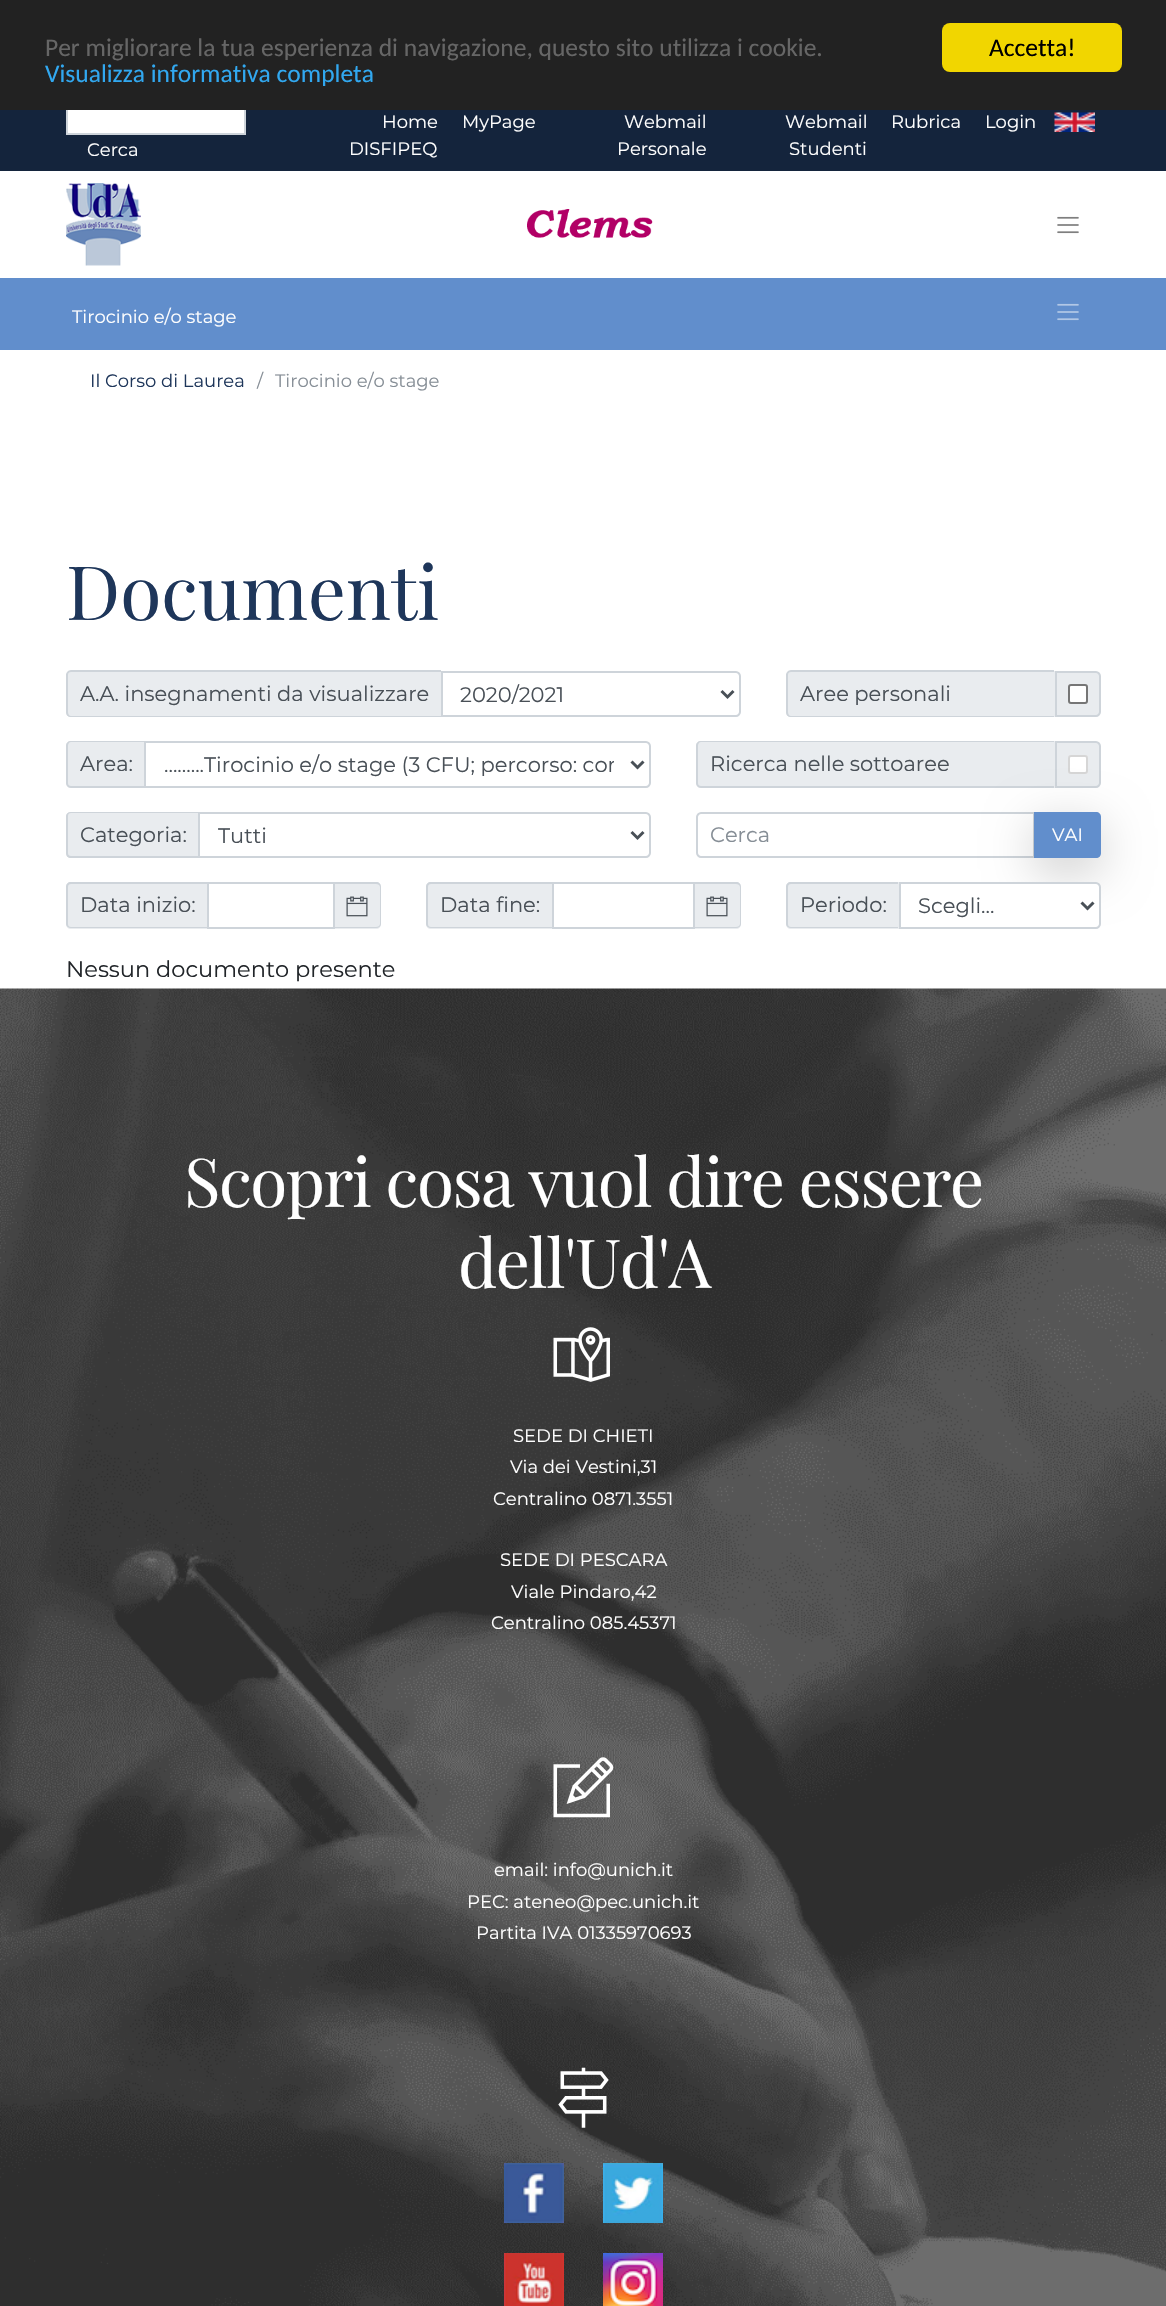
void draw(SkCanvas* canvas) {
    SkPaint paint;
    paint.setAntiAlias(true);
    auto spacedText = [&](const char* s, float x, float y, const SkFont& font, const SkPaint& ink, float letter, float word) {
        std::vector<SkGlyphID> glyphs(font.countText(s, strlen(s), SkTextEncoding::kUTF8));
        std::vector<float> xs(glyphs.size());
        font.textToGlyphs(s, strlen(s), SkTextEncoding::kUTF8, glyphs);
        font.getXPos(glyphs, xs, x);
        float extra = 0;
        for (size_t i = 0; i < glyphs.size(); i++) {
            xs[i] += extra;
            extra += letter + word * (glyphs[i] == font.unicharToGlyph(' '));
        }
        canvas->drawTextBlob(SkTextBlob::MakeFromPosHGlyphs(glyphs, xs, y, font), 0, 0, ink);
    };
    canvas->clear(0xFFFFFFFF);
    paint.setColor(0xFF14243C);
    canvas->drawRect(SkRect::MakeXYWH(0, 110, 1166, 61), paint);
    paint.setColor(0xFFFFFFFF);
    canvas->drawRect(SkRect::MakeXYWH(68, 110, 176, 23), paint);
    paint.setStyle(SkPaint::kStroke_Style);
    paint.setStrokeWidth(2);
    paint.setColor(0xFFCED4DA);
    canvas->drawRect(SkRect::MakeXYWH(67, 106, 178, 28), paint);
    paint.setStyle(SkPaint::kFill_Style);
    paint.setColor(0xFF222222);
    canvas->drawRect(SkRect::MakeXYWH(0, 0, 1166, 110), paint);
    SkFont font1(fontMgr->matchFamilyStyle("Carlito", SkFontStyle::Normal()), 25.5f);
    font1.setSubpixel(true);
    paint.setColor(0xFF666666);
    canvas->drawString("Per migliorare la tua esperienza di navigazione, questo sito utilizza i cookie.", 45, 56, font1, paint);
    paint.setColor(0xFF31A8F0);
    canvas->drawString("Visualizza informativa completa", 45, 82, font1, paint);
    paint.setColor(0xFFF1D600);
    canvas->drawRoundRect(SkRect::MakeXYWH(942, 23, 180, 49), 8, 8, paint);
    paint.setColor(0xFF000000);
    canvas->drawString("Accetta!", 989, 56, font1, paint);
    SkFont font2(fontMgr->matchFamilyStyle("Montserrat", SkFontStyle::Normal()), 18);
    font2.setSubpixel(true);
    paint.setColor(0xFFFFFFFF);
    canvas->drawString("Cerca", 87, 156, font2, paint);
    canvas->drawString("Home", 382, 128, font2, paint);
    canvas->drawString("DISFIPEQ", 349, 155, font2, paint);
    canvas->drawString("MyPage", 462, 128, font2, paint);
    canvas->drawString("Webmail", 624, 128, font2, paint);
    canvas->drawString("Personale", 617, 155, font2, paint);
    canvas->drawString("Webmail", 785, 128, font2, paint);
    canvas->drawString("Studenti", 789, 155, font2, paint);
    canvas->drawString("Rubrica", 891, 128, font2, paint);
    canvas->drawString("Login", 985, 128, font2, paint);
    canvas->drawImageRect(SkImages::DeferredFromEncodedData(SkData::MakeFromFileName("img1.png")), SkRect::MakeXYWH(1054, 112, 41, 20), SkSamplingOptions());
    paint.setColor(0xFF618ECC);
    canvas->drawRect(SkRect::MakeXYWH(0, 278, 1166, 72), paint);
    canvas->drawImageRect(SkImages::DeferredFromEncodedData(SkData::MakeFromFileName("img2.png")), SkRect::MakeXYWH(66, 183, 75, 83), SkSamplingOptions());
    canvas->drawImageRect(SkImages::DeferredFromEncodedData(SkData::MakeFromFileName("img3.png")), SkRect::MakeXYWH(527, 209, 126, 29), SkSamplingOptions());
    canvas->drawImageRect(SkImages::DeferredFromEncodedData(SkData::MakeFromFileName("img4.png")), SkRect::MakeXYWH(1057, 216, 22, 18), SkSamplingOptions());
    paint.setColor(0xFFFFFFFF);
    canvas->drawString("Tirocinio e/o stage", 72, 323, font2, paint);
    canvas->drawImageRect(SkImages::DeferredFromEncodedData(SkData::MakeFromFileName("img5.png")), SkRect::MakeXYWH(1057, 303, 22, 18), SkSamplingOptions());
    paint.setColor(0xFF1E365A);
    canvas->drawString("Il Corso di Laurea", 90, 387, font2, paint);
    paint.setColor(0xFF868E96);
    canvas->drawString("/", 257, 387, font2, paint);
    canvas->drawString("Tirocinio e/o stage", 275, 387, font2, paint);
    SkFont font3(fontMgr->matchFamilyStyle("Playfair Display", SkFontStyle::Normal()), 75);
    font3.setSubpixel(true);
    paint.setColor(0xFF1E365A);
    canvas->drawString("Documenti", 66, 620, font3, paint);
    paint.setColor(0xFFE9ECEF);
    canvas->drawPath(SkPathBuilder().moveTo(71, 671).lineTo(441, 671).lineTo(441, 717).lineTo(71, 717).cubicTo(68, 717, 66, 715, 66, 712).lineTo(66, 676).cubicTo(66, 673, 68, 671, 71, 671).close().detach(), paint);
    paint.setColor(0xFFCED4DA);
    canvas->drawPath(SkPathBuilder(SkPathFillType::kEvenOdd).moveTo(71, 670).lineTo(441, 670).lineTo(441, 717).lineTo(71, 717).cubicTo(68, 717, 66, 715, 66, 712).lineTo(66, 675).cubicTo(66, 673, 68, 670, 71, 670).close().moveTo(71, 672).lineTo(441, 672).lineTo(441, 716).lineTo(71, 716).cubicTo(69, 716, 68, 714, 68, 712).lineTo(68, 675).cubicTo(68, 673, 69, 672, 71, 672).close().detach(), paint);
    SkFont font4(fontMgr->matchFamilyStyle("Montserrat", SkFontStyle::Normal()), 21);
    font4.setSubpixel(true);
    paint.setColor(0xFF495057);
    canvas->drawString("A.A. insegnamenti da visualizzare", 80, 701, font4, paint);
    paint.setStyle(SkPaint::kStroke_Style);
    paint.setColor(0xFFCED4DA);
    canvas->drawPath(SkPathBuilder().moveTo(442, 672).lineTo(736, 672).cubicTo(738, 672, 740, 674, 740, 676).lineTo(740, 712).cubicTo(740, 714, 738, 716, 736, 716).lineTo(442, 716).close().detach(), paint);
    paint.setStrokeWidth(3);
    paint.setColor(0xFF495057);
    canvas->drawPath(SkPathBuilder().moveTo(721.5f, 691).lineTo(727.5f, 697).lineTo(733.5f, 691).detach(), paint);
    paint.setStyle(SkPaint::kFill_Style);
    canvas->drawString("2020/2021", 460, 702, font4, paint);
    paint.setColor(0xFFE9ECEF);
    canvas->drawPath(SkPathBuilder().moveTo(791, 671).lineTo(1055, 671).lineTo(1055, 717).lineTo(791, 717).cubicTo(788, 717, 786, 715, 786, 712).lineTo(786, 676).cubicTo(786, 673, 788, 671, 791, 671).close().detach(), paint);
    paint.setColor(0xFFCED4DA);
    canvas->drawPath(SkPathBuilder(SkPathFillType::kEvenOdd).moveTo(791, 670).lineTo(1054, 670).lineTo(1054, 717).lineTo(791, 717).cubicTo(788, 717, 786, 715, 786, 712).lineTo(786, 675).cubicTo(786, 673, 788, 670, 791, 670).close().moveTo(791, 672).lineTo(1054, 672).lineTo(1054, 716).lineTo(791, 716).cubicTo(789, 716, 788, 714, 788, 712).lineTo(788, 675).cubicTo(788, 673, 789, 672, 791, 672).close().detach(), paint);
    paint.setColor(0xFF495057);
    canvas->drawString("Aree personali", 800, 701, font4, paint);
    paint.setColor(0xFFE9ECEF);
    canvas->drawPath(SkPathBuilder().moveTo(1056, 672).lineTo(1096, 672).cubicTo(1098, 672, 1100, 674, 1100, 676).lineTo(1100, 712).cubicTo(1100, 714, 1098, 716, 1096, 716).lineTo(1056, 716).close().detach(), paint);
    paint.setStyle(SkPaint::kStroke_Style);
    paint.setStrokeWidth(2);
    paint.setColor(0xFFCED4DA);
    canvas->drawPath(SkPathBuilder().moveTo(1056, 672).lineTo(1096, 672).cubicTo(1098, 672, 1100, 674, 1100, 676).lineTo(1100, 712).cubicTo(1100, 714, 1098, 716, 1096, 716).lineTo(1056, 716).close().detach(), paint);
    paint.setStyle(SkPaint::kFill_Style);
    paint.setColor(0xFFFFFFFF);
    canvas->drawRoundRect(SkRect::MakeXYWH(1069, 685, 18, 18), 2, 2, paint);
    paint.setStyle(SkPaint::kStroke_Style);
    paint.setColor(0xFF767676);
    canvas->drawRoundRect(SkRect::MakeXYWH(1069, 685, 18, 18), 2, 2, paint);
    paint.setStyle(SkPaint::kFill_Style);
    paint.setColor(0xFFE9ECEF);
    canvas->drawPath(SkPathBuilder().moveTo(71, 741).lineTo(144, 741).lineTo(144, 788).lineTo(71, 788).cubicTo(68, 788, 66, 786, 66, 783).lineTo(66, 746).cubicTo(66, 743, 68, 741, 71, 741).close().detach(), paint);
    paint.setColor(0xFFCED4DA);
    canvas->drawPath(SkPathBuilder(SkPathFillType::kEvenOdd).moveTo(71, 741).lineTo(144, 741).lineTo(144, 788).lineTo(71, 788).cubicTo(68, 788, 66, 785, 66, 783).lineTo(66, 746).cubicTo(66, 743, 68, 741, 71, 741).close().moveTo(71, 742).lineTo(144, 742).lineTo(144, 786).lineTo(71, 786).cubicTo(69, 786, 68, 785, 68, 783).lineTo(68, 746).cubicTo(68, 744, 69, 742, 71, 742).close().detach(), paint);
    paint.setColor(0xFF495057);
    canvas->drawString("Area:", 80, 771, font4, paint);
    paint.setStyle(SkPaint::kStroke_Style);
    paint.setColor(0xFFCED4DA);
    canvas->drawPath(SkPathBuilder().moveTo(145, 742).lineTo(646, 742).cubicTo(648, 742, 650, 744, 650, 746).lineTo(650, 783).cubicTo(650, 785, 648, 787, 646, 787).lineTo(145, 787).close().detach(), paint);
    paint.setStrokeWidth(3);
    paint.setColor(0xFF495057);
    canvas->drawPath(SkPathBuilder().moveTo(631.5f, 761.5f).lineTo(637.5f, 767.5f).lineTo(643.5f, 761.5f).detach(), paint);
    canvas->save();
    canvas->clipRect(SkRect::MakeXYWH(164, 750, 450, 30));
    paint.setStyle(SkPaint::kFill_Style);
    canvas->drawString(".........Tirocinio e/o stage (3 CFU; percorso: cor", 164, 772, font4, paint);
    canvas->restore();
    paint.setColor(0xFFE9ECEF);
    canvas->drawPath(SkPathBuilder().moveTo(701, 741).lineTo(1055, 741).lineTo(1055, 788).lineTo(701, 788).cubicTo(698, 788, 696, 786, 696, 783).lineTo(696, 746).cubicTo(696, 743, 698, 741, 701, 741).close().detach(), paint);
    paint.setColor(0xFFCED4DA);
    canvas->drawPath(SkPathBuilder(SkPathFillType::kEvenOdd).moveTo(701, 741).lineTo(1054, 741).lineTo(1054, 788).lineTo(701, 788).cubicTo(698, 788, 696, 785, 696, 783).lineTo(696, 746).cubicTo(696, 743, 698, 741, 701, 741).close().moveTo(701, 742).lineTo(1054, 742).lineTo(1054, 786).lineTo(701, 786).cubicTo(699, 786, 698, 785, 698, 783).lineTo(698, 746).cubicTo(698, 744, 699, 742, 701, 742).close().detach(), paint);
    paint.setColor(0xFF495057);
    canvas->drawString("Ricerca nelle sottoaree", 710, 771, font4, paint);
    paint.setColor(0xFFE9ECEF);
    canvas->drawPath(SkPathBuilder().moveTo(1056, 742).lineTo(1096, 742).cubicTo(1098, 742, 1100, 744, 1100, 746).lineTo(1100, 783).cubicTo(1100, 785, 1098, 787, 1096, 787).lineTo(1056, 787).close().detach(), paint);
    paint.setStyle(SkPaint::kStroke_Style);
    paint.setStrokeWidth(2);
    paint.setColor(0xFFCED4DA);
    canvas->drawPath(SkPathBuilder().moveTo(1056, 742).lineTo(1096, 742).cubicTo(1098, 742, 1100, 744, 1100, 746).lineTo(1100, 783).cubicTo(1100, 785, 1098, 787, 1096, 787).lineTo(1056, 787).close().detach(), paint);
    paint.setStyle(SkPaint::kFill_Style);
    paint.setColor(0xFFFFFFFF);
    canvas->drawRoundRect(SkRect::MakeXYWH(1068, 755, 20, 19), 3, 3, paint);
    paint.setStyle(SkPaint::kStroke_Style);
    paint.setColor(0x4D767676);
    canvas->drawRoundRect(SkRect::MakeXYWH(1069, 756, 18, 17), 2, 2, paint);
    paint.setStyle(SkPaint::kFill_Style);
    paint.setColor(0xFFE9ECEF);
    canvas->drawPath(SkPathBuilder().moveTo(71, 812).lineTo(198, 812).lineTo(198, 858).lineTo(71, 858).cubicTo(68, 858, 66, 856, 66, 853).lineTo(66, 817).cubicTo(66, 814, 68, 812, 71, 812).close().detach(), paint);
    paint.setColor(0xFFCED4DA);
    canvas->drawPath(SkPathBuilder(SkPathFillType::kEvenOdd).moveTo(71, 812).lineTo(198, 812).lineTo(198, 858).lineTo(71, 858).cubicTo(68, 858, 66, 856, 66, 853).lineTo(66, 816).cubicTo(66, 814, 68, 812, 71, 812).close().moveTo(71, 813).lineTo(198, 813).lineTo(198, 856).lineTo(71, 856).cubicTo(69, 856, 68, 855, 68, 853).lineTo(68, 816).cubicTo(68, 814, 69, 813, 71, 813).close().detach(), paint);
    paint.setColor(0xFF495057);
    canvas->drawString("Categoria:", 80, 842, font4, paint);
    paint.setStyle(SkPaint::kStroke_Style);
    paint.setColor(0xFFCED4DA);
    canvas->drawPath(SkPathBuilder().moveTo(199, 813).lineTo(646, 813).cubicTo(648, 813, 650, 815, 650, 817).lineTo(650, 853).cubicTo(650, 855, 648, 857, 646, 857).lineTo(199, 857).close().detach(), paint);
    paint.setStrokeWidth(3);
    paint.setColor(0xFF495057);
    canvas->drawPath(SkPathBuilder().moveTo(631.5f, 832).lineTo(637.5f, 838).lineTo(643.5f, 832).detach(), paint);
    paint.setStyle(SkPaint::kFill_Style);
    canvas->drawString("Tutti", 218, 843, font4, paint);
    paint.setStyle(SkPaint::kStroke_Style);
    paint.setStrokeWidth(2);
    paint.setColor(0xFFCED4DA);
    canvas->drawPath(SkPathBuilder().moveTo(701, 813).lineTo(1034, 813).lineTo(1034, 857).lineTo(701, 857).cubicTo(699, 857, 697, 855, 697, 853).lineTo(697, 817).cubicTo(697, 815, 699, 813, 701, 813).close().detach(), paint);
    paint.setStyle(SkPaint::kFill_Style);
    paint.setColor(0xFF868E96);
    canvas->drawString("Cerca", 710, 842, font4, paint);
    paint.setColor(0x33000000);
    paint.setMaskFilter(SkMaskFilter::MakeBlur(kNormal_SkBlurStyle, 24));
    canvas->drawRoundRect(SkRect::MakeXYWH(1034, 825, 67, 47), 5, 5, paint);
    paint.setMaskFilter(nullptr);
    paint.setColor(0xFF618ECC);
    canvas->drawPath(SkPathBuilder().moveTo(1034, 812).lineTo(1096, 812).cubicTo(1099, 812, 1101, 814, 1101, 817).lineTo(1101, 853).cubicTo(1101, 856, 1099, 858, 1096, 858).lineTo(1034, 858).close().detach(), paint);
    paint.setColor(0xFFFFFFFF);
    canvas->drawString("VAI", 1052, 841, font2, paint);
    paint.setColor(0xFFE9ECEF);
    canvas->drawPath(SkPathBuilder().moveTo(71, 882).lineTo(207, 882).lineTo(207, 929).lineTo(71, 929).cubicTo(68, 929, 66, 927, 66, 924).lineTo(66, 887).cubicTo(66, 884, 68, 882, 71, 882).close().detach(), paint);
    paint.setColor(0xFFCED4DA);
    canvas->drawPath(SkPathBuilder(SkPathFillType::kEvenOdd).moveTo(71, 882).lineTo(207, 882).lineTo(207, 928).lineTo(71, 928).cubicTo(68, 928, 66, 926, 66, 924).lineTo(66, 887).cubicTo(66, 884, 68, 882, 71, 882).close().moveTo(71, 884).lineTo(207, 884).lineTo(207, 927).lineTo(71, 927).cubicTo(69, 927, 68, 926, 68, 924).lineTo(68, 887).cubicTo(68, 885, 69, 884, 71, 884).close().detach(), paint);
    paint.setColor(0xFF495057);
    canvas->drawString("Data inizio:", 80, 912, font4, paint);
    paint.setColor(0xFFE9ECEF);
    canvas->drawPath(SkPathBuilder().moveTo(335, 882).lineTo(376, 882).cubicTo(379, 882, 381, 884, 381, 887).lineTo(381, 924).cubicTo(381, 927, 379, 929, 376, 929).lineTo(335, 929).close().detach(), paint);
    paint.setColor(0xFFCED4DA);
    canvas->drawPath(SkPathBuilder(SkPathFillType::kEvenOdd).moveTo(334, 882).lineTo(376, 882).cubicTo(379, 882, 381, 884, 381, 887).lineTo(381, 924).cubicTo(381, 926, 379, 928, 376, 928).lineTo(334, 928).close().moveTo(334, 884).lineTo(376, 884).cubicTo(378, 884, 380, 885, 380, 887).lineTo(380, 924).cubicTo(380, 926, 378, 927, 376, 927).lineTo(334, 927).close().detach(), paint);
    paint.setStyle(SkPaint::kStroke_Style);
    canvas->drawRect(SkRect::MakeXYWH(208, 883, 126, 45), paint);
    canvas->drawImageRect(SkImages::DeferredFromEncodedData(SkData::MakeFromFileName("img6.png")), SkRect::MakeXYWH(346, 896, 22, 21), SkSamplingOptions());
    paint.setStyle(SkPaint::kFill_Style);
    paint.setColor(0xFFE9ECEF);
    canvas->drawPath(SkPathBuilder().moveTo(431, 882).lineTo(552, 882).lineTo(552, 929).lineTo(431, 929).cubicTo(428, 929, 426, 927, 426, 924).lineTo(426, 887).cubicTo(426, 884, 428, 882, 431, 882).close().detach(), paint);
    paint.setColor(0xFFCED4DA);
    canvas->drawPath(SkPathBuilder(SkPathFillType::kEvenOdd).moveTo(431, 882).lineTo(552, 882).lineTo(552, 928).lineTo(431, 928).cubicTo(428, 928, 426, 926, 426, 924).lineTo(426, 887).cubicTo(426, 884, 428, 882, 431, 882).close().moveTo(431, 884).lineTo(552, 884).lineTo(552, 927).lineTo(431, 927).cubicTo(429, 927, 428, 926, 428, 924).lineTo(428, 887).cubicTo(428, 885, 429, 884, 431, 884).close().detach(), paint);
    paint.setColor(0xFF495057);
    canvas->drawString("Data fine:", 440, 912, font4, paint);
    paint.setColor(0xFFE9ECEF);
    canvas->drawPath(SkPathBuilder().moveTo(695, 882).lineTo(736, 882).cubicTo(739, 882, 741, 884, 741, 887).lineTo(741, 924).cubicTo(741, 927, 739, 929, 736, 929).lineTo(695, 929).close().detach(), paint);
    paint.setColor(0xFFCED4DA);
    canvas->drawPath(SkPathBuilder(SkPathFillType::kEvenOdd).moveTo(694, 882).lineTo(736, 882).cubicTo(739, 882, 741, 884, 741, 887).lineTo(741, 924).cubicTo(741, 926, 739, 928, 736, 928).lineTo(694, 928).close().moveTo(694, 884).lineTo(736, 884).cubicTo(738, 884, 740, 885, 740, 887).lineTo(740, 924).cubicTo(740, 926, 738, 927, 736, 927).lineTo(694, 927).close().detach(), paint);
    paint.setStyle(SkPaint::kStroke_Style);
    canvas->drawRect(SkRect::MakeXYWH(553, 883, 141, 45), paint);
    canvas->drawImageRect(SkImages::DeferredFromEncodedData(SkData::MakeFromFileName("img6.png")), SkRect::MakeXYWH(706, 896, 22, 21), SkSamplingOptions());
    paint.setStyle(SkPaint::kFill_Style);
    paint.setColor(0xFFE9ECEF);
    canvas->drawPath(SkPathBuilder().moveTo(791, 882).lineTo(899, 882).lineTo(899, 929).lineTo(791, 929).cubicTo(788, 929, 786, 927, 786, 924).lineTo(786, 887).cubicTo(786, 884, 788, 882, 791, 882).close().detach(), paint);
    paint.setColor(0xFFCED4DA);
    canvas->drawPath(SkPathBuilder(SkPathFillType::kEvenOdd).moveTo(791, 882).lineTo(898, 882).lineTo(898, 928).lineTo(791, 928).cubicTo(788, 928, 786, 926, 786, 924).lineTo(786, 887).cubicTo(786, 884, 788, 882, 791, 882).close().moveTo(791, 884).lineTo(898, 884).lineTo(898, 927).lineTo(791, 927).cubicTo(789, 927, 788, 926, 788, 924).lineTo(788, 887).cubicTo(788, 885, 789, 884, 791, 884).close().detach(), paint);
    paint.setColor(0xFF495057);
    canvas->drawString("Periodo:", 800, 912, font4, paint);
    paint.setColor(0xFFFFFFFF);
    canvas->drawPath(SkPathBuilder().moveTo(900, 883).lineTo(1096, 883).cubicTo(1098, 883, 1100, 885, 1100, 887).lineTo(1100, 924).cubicTo(1100, 926, 1098, 928, 1096, 928).lineTo(900, 928).close().detach(), paint);
    paint.setStyle(SkPaint::kStroke_Style);
    paint.setColor(0xFFCED4DA);
    canvas->drawPath(SkPathBuilder().moveTo(900, 883).lineTo(1096, 883).cubicTo(1098, 883, 1100, 885, 1100, 887).lineTo(1100, 924).cubicTo(1100, 926, 1098, 928, 1096, 928).lineTo(900, 928).close().detach(), paint);
    paint.setStrokeWidth(3);
    paint.setColor(0xFF495057);
    canvas->drawPath(SkPathBuilder().moveTo(1081.5f, 902.5f).lineTo(1087.5f, 908.5f).lineTo(1093.5f, 902.5f).detach(), paint);
    paint.setStyle(SkPaint::kFill_Style);
    canvas->drawString("Scegli...", 918, 913, font4, paint);
    SkFont font5(fontMgr->matchFamilyStyle("Montserrat", SkFontStyle::Normal()), 22.5f);
    font5.setSubpixel(true);
    paint.setColor(0xFF212529);
    canvas->drawString("Nessun documento presente", 66, 977, font5, paint);
    canvas->drawImageRect(SkImages::DeferredFromEncodedData(SkData::MakeFromFileName("img7.png")), SkRect::MakeXYWH(0, 988, 1166, 1318), SkSamplingOptions());
    SkFont font6(fontMgr->matchFamilyStyle("Playfair Display", SkFontStyle::Normal()), 67.5f);
    font6.setSubpixel(true);
    paint.setColor(0xFFFFFFFF);
    spacedText("Scopri cosa vuol dire essere", 184, 1207, font6, paint, -1.5f, 0);
    spacedText("dell'Ud'A", 458, 1288, font6, paint, -1.5f, 0);
    canvas->drawImageRect(SkImages::DeferredFromEncodedData(SkData::MakeFromFileName("img8.png")), SkRect::MakeXYWH(553, 1327, 57, 55), SkSamplingOptions());
    canvas->drawString("SEDE DI CHIETI", 513, 1442, font2, paint);
    canvas->drawString("Via dei Vestini,31", 510, 1473, font2, paint);
    canvas->drawString("Centralino 0871.3551", 493, 1505, font2, paint);
    canvas->drawString("SEDE DI PESCARA", 500, 1566, font2, paint);
    canvas->drawString("Viale Pindaro,42", 511, 1598, font2, paint);
    canvas->drawString("Centralino 085.45371", 491, 1629, font2, paint);
    canvas->drawImageRect(SkImages::DeferredFromEncodedData(SkData::MakeFromFileName("img9.png")), SkRect::MakeXYWH(553, 1757, 61, 61), SkSamplingOptions());
    canvas->drawString("email: info@unich.it", 494, 1876, font2, paint);
    canvas->drawString("PEC: ateneo@pec.unich.it", 467, 1908, font2, paint);
    canvas->drawString("Partita IVA 01335970693", 476, 1939, font2, paint);
    canvas->drawImageRect(SkImages::DeferredFromEncodedData(SkData::MakeFromFileName("img10.png")), SkRect::MakeXYWH(558, 2067, 51, 61), SkSamplingOptions());
    canvas->drawImageRect(SkImages::DeferredFromEncodedData(SkData::MakeFromFileName("img11.png")), SkRect::MakeXYWH(504, 2163, 60, 60), SkSamplingOptions());
    canvas->drawImageRect(SkImages::DeferredFromEncodedData(SkData::MakeFromFileName("img12.png")), SkRect::MakeXYWH(603, 2163, 60, 60), SkSamplingOptions());
    canvas->drawImageRect(SkImages::DeferredFromEncodedData(SkData::MakeFromFileName("img13.png")), SkRect::MakeXYWH(504, 2253, 60, 53), SkSamplingOptions());
    canvas->drawImageRect(SkImages::DeferredFromEncodedData(SkData::MakeFromFileName("img14.png")), SkRect::MakeXYWH(603, 2253, 60, 53), SkSamplingOptions());
}
